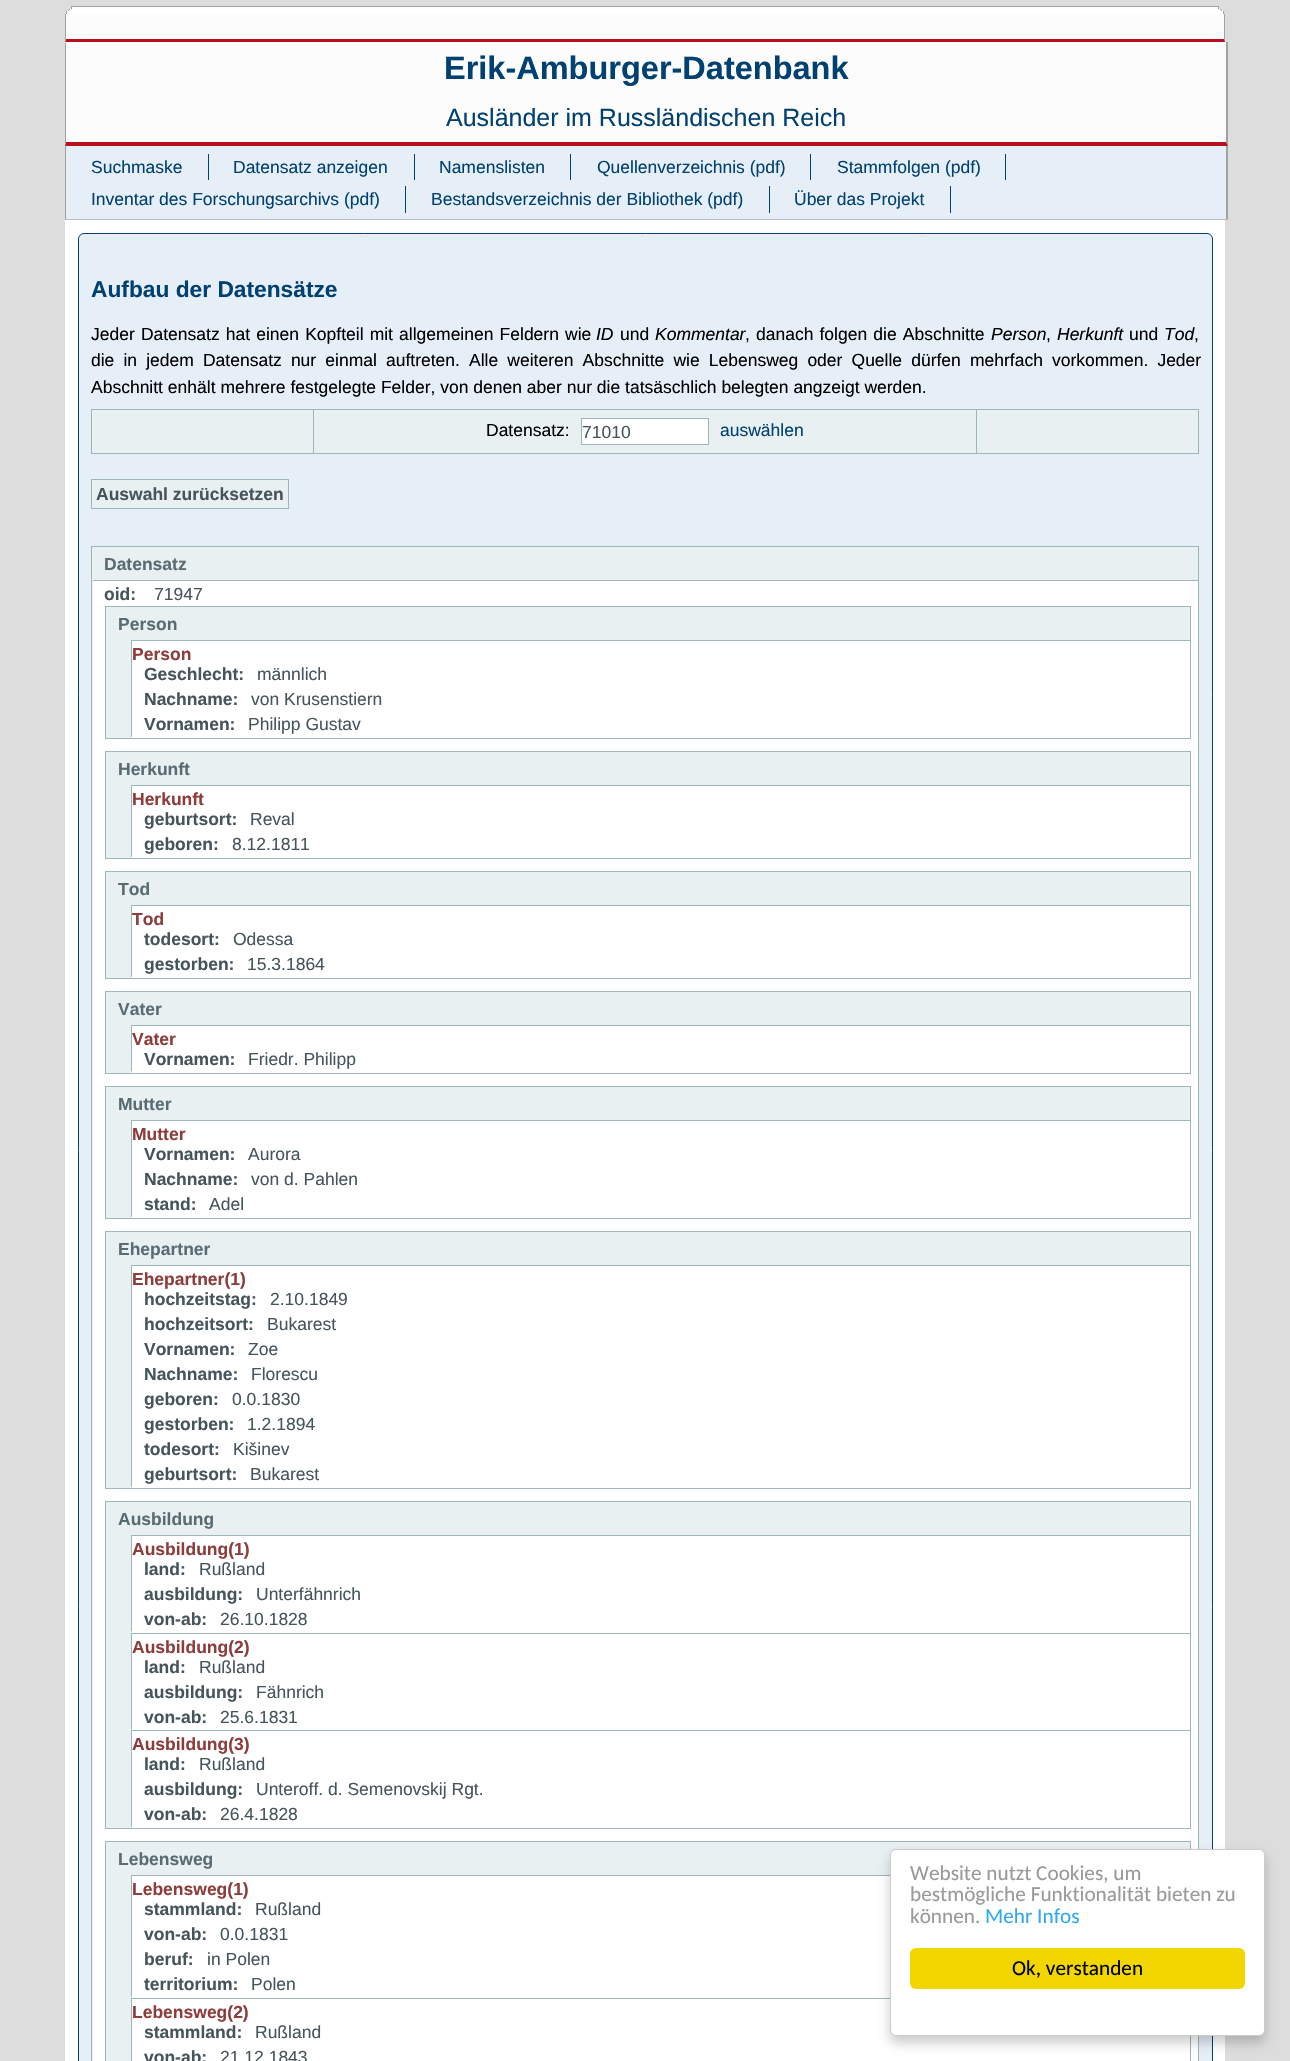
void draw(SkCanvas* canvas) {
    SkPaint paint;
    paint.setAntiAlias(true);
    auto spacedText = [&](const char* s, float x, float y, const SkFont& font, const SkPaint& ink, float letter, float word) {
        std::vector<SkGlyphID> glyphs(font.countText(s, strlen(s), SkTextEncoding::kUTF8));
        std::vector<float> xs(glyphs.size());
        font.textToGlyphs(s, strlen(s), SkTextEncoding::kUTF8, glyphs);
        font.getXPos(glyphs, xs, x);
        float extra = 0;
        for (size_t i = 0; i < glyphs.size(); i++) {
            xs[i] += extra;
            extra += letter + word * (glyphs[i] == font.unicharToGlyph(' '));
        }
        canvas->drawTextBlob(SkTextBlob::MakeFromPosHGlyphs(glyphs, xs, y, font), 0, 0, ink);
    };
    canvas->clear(0xFFDDDDDD);
    paint.setColor(0xFFFFFFFF);
    canvas->drawRect(SkRect::MakeXYWH(71, 7, 1148, 2), paint);
    paint.setColor(0xFFA1A1A1);
    canvas->drawRect(SkRect::MakeXYWH(71, 6, 1148, 1), paint);
    canvas->drawRect(SkRect::MakeXYWH(1218, 6, 1, 3), paint);
    canvas->drawRect(SkRect::MakeXYWH(71, 6, 1, 3), paint);
    paint.setColor(0xFFFFFFFF);
    canvas->drawRect(SkRect::MakeXYWH(69, 9, 1152, 1), paint);
    paint.setColor(0xFFA1A1A1);
    canvas->drawRect(SkRect::MakeXYWH(1220, 9, 1, 1), paint);
    canvas->drawRect(SkRect::MakeXYWH(69, 9, 1, 1), paint);
    paint.setColor(0xFFFFFFFF);
    canvas->drawRect(SkRect::MakeXYWH(68, 10, 1155, 1), paint);
    paint.setColor(0xFFA1A1A1);
    canvas->drawRect(SkRect::MakeXYWH(1221, 10, 1, 1), paint);
    canvas->drawRect(SkRect::MakeXYWH(68, 10, 1, 1), paint);
    paint.setColor(0xFFFFFFFF);
    canvas->drawRect(SkRect::MakeXYWH(66, 11, 1158, 3), paint);
    paint.setColor(0xFFA1A1A1);
    canvas->drawRect(SkRect::MakeXYWH(1223, 11, 1, 3), paint);
    canvas->drawRect(SkRect::MakeXYWH(66, 11, 1, 3), paint);
    paint.setColor(0xFFFCFCFC);
    canvas->drawRect(SkRect::MakeXYWH(65, 43, 1163, 103), paint);
    paint.setColor(0xFFA1A1A1);
    canvas->drawPath(SkPathBuilder().moveTo(1228, 42).lineTo(1228, 146).lineTo(1226, 142).lineTo(1226, 42).close().detach(), paint);
    paint.setColor(0xFFB6101D);
    canvas->drawPath(SkPathBuilder().moveTo(1228, 146).lineTo(65, 146).lineTo(66, 142).lineTo(1226, 142).close().detach(), paint);
    paint.setColor(0xFFA1A1A1);
    canvas->drawPath(SkPathBuilder().moveTo(65, 146).lineTo(65, 42).lineTo(66, 42).lineTo(66, 142).close().detach(), paint);
    paint.setColor(0xFFFCFCFC);
    canvas->drawRect(SkRect::MakeXYWH(65, 14, 1160, 29), paint);
    paint.setColor(0xFFA1A1A1);
    canvas->drawPath(SkPathBuilder().moveTo(1225, 14).lineTo(1225, 42.5f).lineTo(1224, 39).lineTo(1224, 14).close().detach(), paint);
    paint.setColor(0xFFB6101D);
    canvas->drawPath(SkPathBuilder().moveTo(1225, 42).lineTo(65, 42).lineTo(66, 39).lineTo(1224, 39).close().detach(), paint);
    paint.setColor(0xFFA1A1A1);
    canvas->drawPath(SkPathBuilder().moveTo(65, 42.5f).lineTo(65, 14).lineTo(66, 14).lineTo(66, 39).close().detach(), paint);
    SkFont font1(fontMgr->matchFamilyStyle("Liberation Sans", SkFontStyle::Bold()), 32.5f);
    font1.setSubpixel(true);
    paint.setColor(0xFF004171);
    canvas->drawString("Erik-Amburger-Datenbank", 444, 79, font1, paint);
    SkFont font2(fontMgr->matchFamilyStyle("Liberation Sans", SkFontStyle::Normal()), 25);
    font2.setSubpixel(true);
    canvas->drawString("Ausländer im Russländischen Reich", 446, 126, font2, paint);
    paint.setColor(0xFFE6EEF8);
    canvas->drawRect(SkRect::MakeXYWH(65, 146, 1163, 74), paint);
    paint.setColor(0xFFA1A1A1);
    canvas->drawPath(SkPathBuilder().moveTo(1228, 146).lineTo(1228, 220).lineTo(1226, 219).lineTo(1226, 146).close().detach(), paint);
    paint.setColor(0x33000000);
    canvas->drawPath(SkPathBuilder().moveTo(1228, 220).lineTo(65, 220).lineTo(66, 219).lineTo(1226, 219).close().detach(), paint);
    paint.setColor(0xFFA1A1A1);
    canvas->drawPath(SkPathBuilder().moveTo(65, 220).lineTo(65, 146).lineTo(66, 146).lineTo(66, 219).close().detach(), paint);
    paint.setColor(0xFF004171);
    canvas->drawRect(SkRect::MakeXYWH(208, 154, 1, 26), paint);
    SkFont font3(fontMgr->matchFamilyStyle("Liberation Sans", SkFontStyle::Normal()), 17.5f);
    font3.setSubpixel(true);
    canvas->drawString("Suchmaske", 91, 173, font3, paint);
    canvas->drawRect(SkRect::MakeXYWH(414, 154, 1, 26), paint);
    canvas->drawString("Datensatz anzeigen", 233, 173, font3, paint);
    canvas->drawRect(SkRect::MakeXYWH(570, 154, 1, 26), paint);
    canvas->drawString("Namenslisten", 439, 173, font3, paint);
    canvas->drawRect(SkRect::MakeXYWH(810, 154, 1, 26), paint);
    canvas->drawString("Quellenverzeichnis (pdf)", 597, 173, font3, paint);
    canvas->drawRect(SkRect::MakeXYWH(1005, 154, 1, 26), paint);
    canvas->drawString("Stammfolgen (pdf)", 837, 173, font3, paint);
    canvas->drawRect(SkRect::MakeXYWH(405, 186, 1, 27), paint);
    canvas->drawString("Inventar des Forschungsarchivs (pdf)", 91, 205, font3, paint);
    canvas->drawRect(SkRect::MakeXYWH(769, 186, 1, 27), paint);
    canvas->drawString("Bestandsverzeichnis der Bibliothek (pdf)", 431, 205, font3, paint);
    canvas->drawRect(SkRect::MakeXYWH(950, 186, 1, 27), paint);
    canvas->drawString("Über das Projekt", 794, 205, font3, paint);
    paint.setColor(0xFFFFFFFF);
    canvas->drawRect(SkRect::MakeXYWH(65, 220, 1160, 1841), paint);
    paint.setColor(0xFFE6EEF8);
    canvas->drawRoundRect(SkRect::MakeXYWH(78.5f, 233.5f, 1134, 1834), 5.5f, 5.5f, paint);
    paint.setStyle(SkPaint::kStroke_Style);
    paint.setStrokeWidth(1);
    paint.setColor(0xFF004171);
    canvas->drawRoundRect(SkRect::MakeXYWH(78.5f, 233.5f, 1134, 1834), 5.5f, 5.5f, paint);
    SkFont font4(fontMgr->matchFamilyStyle("Liberation Sans", SkFontStyle::Bold()), 22.75f);
    font4.setSubpixel(true);
    paint.setStyle(SkPaint::kFill_Style);
    canvas->drawString("Aufbau der Datensätze", 91, 297, font4, paint);
    paint.setColor(0xFF000000);
    spacedText("Jeder Datensatz hat einen Kopfteil mit allgemeinen Feldern wie", 91, 340, font3, paint, 0, 1.25f);
    SkFont font5(fontMgr->matchFamilyStyle("Liberation Sans", SkFontStyle::Italic()), 17.5f);
    font5.setSubpixel(true);
    canvas->drawString("ID", 596, 340, font5, paint);
    canvas->drawString("und", 620, 340, font3, paint);
    canvas->drawString("Kommentar", 655, 340, font5, paint);
    spacedText(", danach folgen die Abschnitte", 745, 340, font3, paint, 0, 1.25f);
    canvas->drawString("Person", 991, 340, font5, paint);
    canvas->drawString(",", 1046, 340, font3, paint);
    canvas->drawString("Herkunft", 1057, 340, font5, paint);
    canvas->drawString("und", 1129, 340, font3, paint);
    canvas->drawString("Tod", 1164, 340, font5, paint);
    canvas->drawString(",", 1194, 340, font3, paint);
    spacedText("die in jedem Datensatz nur einmal auftreten. Alle weiteren Abschnitte wie Lebensweg oder Quelle dürfen mehrfach vorkommen. Jeder", 91, 366, font3, paint, 0, 4.25f);
    canvas->drawString("Abschnitt enhält mehrere festgelegte Felder, von denen aber nur die tatsäschlich belegten angzeigt werden.", 91, 393, font3, paint);
    paint.setColor(0xFF9DB6BA);
    canvas->drawRect(SkRect::MakeXYWH(91, 409, 1108, 1), paint);
    canvas->drawRect(SkRect::MakeXYWH(1198, 409, 1, 45), paint);
    canvas->drawRect(SkRect::MakeXYWH(91, 453, 1108, 1), paint);
    canvas->drawRect(SkRect::MakeXYWH(91, 409, 1, 45), paint);
    paint.setColor(0xFFE8F0F2);
    canvas->drawRect(SkRect::MakeXYWH(92, 410, 221, 43), paint);
    canvas->drawRect(SkRect::MakeXYWH(314, 410, 884, 43), paint);
    paint.setColor(0xFF9DB6BA);
    canvas->drawRect(SkRect::MakeXYWH(313, 409, 1, 45), paint);
    paint.setColor(0xFF000000);
    canvas->drawString("Datensatz:", 486, 436, font3, paint);
    paint.setColor(0xFFFFFFFF);
    canvas->drawRect(SkRect::MakeXYWH(581.5f, 418.5f, 127, 26), paint);
    paint.setStyle(SkPaint::kStroke_Style);
    paint.setColor(0xFF9DB6BA);
    canvas->drawRect(SkRect::MakeXYWH(581.5f, 418.5f, 127, 26), paint);
    paint.setStyle(SkPaint::kFill_Style);
    paint.setColor(0xFF46555B);
    canvas->drawString("71010", 582, 438, font3, paint);
    paint.setColor(0xFF004171);
    canvas->drawString("auswählen", 720, 436, font3, paint);
    paint.setColor(0xFF9DB6BA);
    canvas->drawRect(SkRect::MakeXYWH(976, 409, 1, 45), paint);
    paint.setColor(0xFFE8F0F2);
    canvas->drawRect(SkRect::MakeXYWH(91.5f, 479.5f, 197, 29), paint);
    paint.setStyle(SkPaint::kStroke_Style);
    paint.setColor(0xFF9DB6BA);
    canvas->drawRect(SkRect::MakeXYWH(91.5f, 479.5f, 197, 29), paint);
    SkFont font6(fontMgr->matchFamilyStyle("Liberation Sans", SkFontStyle::Bold()), 17.5f);
    font6.setSubpixel(true);
    paint.setStyle(SkPaint::kFill_Style);
    paint.setColor(0xFF46555B);
    canvas->drawString("Auswahl zurücksetzen", 96, 500, font6, paint);
    paint.setColor(0xFFE8F0F2);
    canvas->drawRect(SkRect::MakeXYWH(91.5f, 546.5f, 1107, 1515), paint);
    paint.setStyle(SkPaint::kStroke_Style);
    paint.setColor(0xFF9DB6BA);
    canvas->drawRect(SkRect::MakeXYWH(91.5f, 546.5f, 1107, 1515), paint);
    paint.setStyle(SkPaint::kFill_Style);
    paint.setColor(0xFF596C72);
    canvas->drawString("Datensatz", 104, 570, font6, paint);
    paint.setColor(0xFFFFFFFF);
    canvas->drawRect(SkRect::MakeXYWH(93, 581, 1105, 1480), paint);
    paint.setColor(0xFF9DB6BA);
    canvas->drawRect(SkRect::MakeXYWH(93, 580, 1105, 1), paint);
    paint.setColor(0xFF46555B);
    canvas->drawString("oid:", 104, 600, font6, paint);
    canvas->drawString("71947", 154, 600, font3, paint);
    paint.setColor(0xFFE8F0F2);
    canvas->drawRect(SkRect::MakeXYWH(105.5f, 606.5f, 1085, 132), paint);
    paint.setStyle(SkPaint::kStroke_Style);
    paint.setColor(0xFF9DB6BA);
    canvas->drawRect(SkRect::MakeXYWH(105.5f, 606.5f, 1085, 132), paint);
    paint.setStyle(SkPaint::kFill_Style);
    paint.setColor(0xFF596C72);
    canvas->drawString("Person", 118, 630, font6, paint);
    paint.setColor(0xFFFFFFFF);
    canvas->drawRect(SkRect::MakeXYWH(131, 641, 1059, 97), paint);
    paint.setColor(0xFF9DB6BA);
    canvas->drawRect(SkRect::MakeXYWH(131, 640, 1059, 1), paint);
    canvas->drawPath(SkPathBuilder().moveTo(131, 738).lineTo(131, 640).lineTo(132, 641).lineTo(132, 736).close().detach(), paint);
    paint.setColor(0xFF8D3D3C);
    canvas->drawString("Person", 132, 660, font6, paint);
    paint.setColor(0xFF46555B);
    canvas->drawString("Geschlecht:", 144, 680, font6, paint);
    canvas->drawString("männlich", 257, 680, font3, paint);
    canvas->drawString("Nachname:", 144, 705, font6, paint);
    canvas->drawString("von Krusenstiern", 251, 705, font3, paint);
    canvas->drawString("Vornamen:", 144, 730, font6, paint);
    canvas->drawString("Philipp Gustav", 248, 730, font3, paint);
    paint.setColor(0xFFE8F0F2);
    canvas->drawRect(SkRect::MakeXYWH(105.5f, 751.5f, 1085, 107), paint);
    paint.setStyle(SkPaint::kStroke_Style);
    paint.setColor(0xFF9DB6BA);
    canvas->drawRect(SkRect::MakeXYWH(105.5f, 751.5f, 1085, 107), paint);
    paint.setStyle(SkPaint::kFill_Style);
    paint.setColor(0xFF596C72);
    canvas->drawString("Herkunft", 118, 775, font6, paint);
    paint.setColor(0xFFFFFFFF);
    canvas->drawRect(SkRect::MakeXYWH(131, 786, 1059, 72), paint);
    paint.setColor(0xFF9DB6BA);
    canvas->drawRect(SkRect::MakeXYWH(131, 785, 1059, 1), paint);
    canvas->drawPath(SkPathBuilder().moveTo(131, 858).lineTo(131, 785).lineTo(132, 786).lineTo(132, 856).close().detach(), paint);
    paint.setColor(0xFF8D3D3C);
    canvas->drawString("Herkunft", 132, 805, font6, paint);
    paint.setColor(0xFF46555B);
    canvas->drawString("geburtsort:", 144, 825, font6, paint);
    canvas->drawString("Reval", 250, 825, font3, paint);
    canvas->drawString("geboren:", 144, 850, font6, paint);
    canvas->drawString("8.12.1811", 232, 850, font3, paint);
    paint.setColor(0xFFE8F0F2);
    canvas->drawRect(SkRect::MakeXYWH(105.5f, 871.5f, 1085, 107), paint);
    paint.setStyle(SkPaint::kStroke_Style);
    paint.setColor(0xFF9DB6BA);
    canvas->drawRect(SkRect::MakeXYWH(105.5f, 871.5f, 1085, 107), paint);
    paint.setStyle(SkPaint::kFill_Style);
    paint.setColor(0xFF596C72);
    canvas->drawString("Tod", 118, 895, font6, paint);
    paint.setColor(0xFFFFFFFF);
    canvas->drawRect(SkRect::MakeXYWH(131, 906, 1059, 72), paint);
    paint.setColor(0xFF9DB6BA);
    canvas->drawRect(SkRect::MakeXYWH(131, 905, 1059, 1), paint);
    canvas->drawPath(SkPathBuilder().moveTo(131, 978).lineTo(131, 905).lineTo(132, 906).lineTo(132, 976).close().detach(), paint);
    paint.setColor(0xFF8D3D3C);
    canvas->drawString("Tod", 132, 925, font6, paint);
    paint.setColor(0xFF46555B);
    canvas->drawString("todesort:", 144, 945, font6, paint);
    canvas->drawString("Odessa", 233, 945, font3, paint);
    canvas->drawString("gestorben:", 144, 970, font6, paint);
    canvas->drawString("15.3.1864", 247, 970, font3, paint);
    paint.setColor(0xFFE8F0F2);
    canvas->drawRect(SkRect::MakeXYWH(105.5f, 991.5f, 1085, 82), paint);
    paint.setStyle(SkPaint::kStroke_Style);
    paint.setColor(0xFF9DB6BA);
    canvas->drawRect(SkRect::MakeXYWH(105.5f, 991.5f, 1085, 82), paint);
    paint.setStyle(SkPaint::kFill_Style);
    paint.setColor(0xFF596C72);
    canvas->drawString("Vater", 118, 1015, font6, paint);
    paint.setColor(0xFFFFFFFF);
    canvas->drawRect(SkRect::MakeXYWH(131, 1026, 1059, 47), paint);
    paint.setColor(0xFF9DB6BA);
    canvas->drawRect(SkRect::MakeXYWH(131, 1025, 1059, 1), paint);
    canvas->drawPath(SkPathBuilder().moveTo(131, 1072).lineTo(131, 1025).lineTo(132, 1026).lineTo(132, 1071).close().detach(), paint);
    paint.setColor(0xFF8D3D3C);
    canvas->drawString("Vater", 132, 1045, font6, paint);
    paint.setColor(0xFF46555B);
    canvas->drawString("Vornamen:", 144, 1065, font6, paint);
    canvas->drawString("Friedr. Philipp", 248, 1065, font3, paint);
    paint.setColor(0xFFE8F0F2);
    canvas->drawRect(SkRect::MakeXYWH(105.5f, 1086.5f, 1085, 132), paint);
    paint.setStyle(SkPaint::kStroke_Style);
    paint.setColor(0xFF9DB6BA);
    canvas->drawRect(SkRect::MakeXYWH(105.5f, 1086.5f, 1085, 132), paint);
    paint.setStyle(SkPaint::kFill_Style);
    paint.setColor(0xFF596C72);
    canvas->drawString("Mutter", 118, 1110, font6, paint);
    paint.setColor(0xFFFFFFFF);
    canvas->drawRect(SkRect::MakeXYWH(131, 1121, 1059, 97), paint);
    paint.setColor(0xFF9DB6BA);
    canvas->drawRect(SkRect::MakeXYWH(131, 1120, 1059, 1), paint);
    canvas->drawPath(SkPathBuilder().moveTo(131, 1218).lineTo(131, 1120).lineTo(132, 1121).lineTo(132, 1216).close().detach(), paint);
    paint.setColor(0xFF8D3D3C);
    canvas->drawString("Mutter", 132, 1140, font6, paint);
    paint.setColor(0xFF46555B);
    canvas->drawString("Vornamen:", 144, 1160, font6, paint);
    canvas->drawString("Aurora", 248, 1160, font3, paint);
    canvas->drawString("Nachname:", 144, 1185, font6, paint);
    canvas->drawString("von d. Pahlen", 251, 1185, font3, paint);
    canvas->drawString("stand:", 144, 1210, font6, paint);
    canvas->drawString("Adel", 209, 1210, font3, paint);
    paint.setColor(0xFFE8F0F2);
    canvas->drawRect(SkRect::MakeXYWH(105.5f, 1231.5f, 1085, 257), paint);
    paint.setStyle(SkPaint::kStroke_Style);
    paint.setColor(0xFF9DB6BA);
    canvas->drawRect(SkRect::MakeXYWH(105.5f, 1231.5f, 1085, 257), paint);
    paint.setStyle(SkPaint::kFill_Style);
    paint.setColor(0xFF596C72);
    canvas->drawString("Ehepartner", 118, 1255, font6, paint);
    paint.setColor(0xFFFFFFFF);
    canvas->drawRect(SkRect::MakeXYWH(131, 1266, 1059, 222), paint);
    paint.setColor(0xFF9DB6BA);
    canvas->drawRect(SkRect::MakeXYWH(131, 1265, 1059, 1), paint);
    canvas->drawPath(SkPathBuilder().moveTo(131, 1488).lineTo(131, 1265).lineTo(132, 1266).lineTo(132, 1486).close().detach(), paint);
    paint.setColor(0xFF8D3D3C);
    canvas->drawString("Ehepartner(1)", 132, 1285, font6, paint);
    paint.setColor(0xFF46555B);
    canvas->drawString("hochzeitstag:", 144, 1305, font6, paint);
    canvas->drawString("2.10.1849", 270, 1305, font3, paint);
    canvas->drawString("hochzeitsort:", 144, 1330, font6, paint);
    canvas->drawString("Bukarest", 267, 1330, font3, paint);
    canvas->drawString("Vornamen:", 144, 1355, font6, paint);
    canvas->drawString("Zoe", 248, 1355, font3, paint);
    canvas->drawString("Nachname:", 144, 1380, font6, paint);
    canvas->drawString("Florescu", 251, 1380, font3, paint);
    canvas->drawString("geboren:", 144, 1405, font6, paint);
    canvas->drawString("0.0.1830", 232, 1405, font3, paint);
    canvas->drawString("gestorben:", 144, 1430, font6, paint);
    canvas->drawString("1.2.1894", 247, 1430, font3, paint);
    canvas->drawString("todesort:", 144, 1455, font6, paint);
    canvas->drawString("Kišinev", 233, 1455, font3, paint);
    canvas->drawString("geburtsort:", 144, 1480, font6, paint);
    canvas->drawString("Bukarest", 250, 1480, font3, paint);
    paint.setColor(0xFFE8F0F2);
    canvas->drawRect(SkRect::MakeXYWH(105.5f, 1501.5f, 1085, 327), paint);
    paint.setStyle(SkPaint::kStroke_Style);
    paint.setColor(0xFF9DB6BA);
    canvas->drawRect(SkRect::MakeXYWH(105.5f, 1501.5f, 1085, 327), paint);
    paint.setStyle(SkPaint::kFill_Style);
    paint.setColor(0xFF596C72);
    canvas->drawString("Ausbildung", 118, 1525, font6, paint);
    paint.setColor(0xFFFFFFFF);
    canvas->drawRect(SkRect::MakeXYWH(131, 1536, 1059, 97), paint);
    paint.setColor(0xFF9DB6BA);
    canvas->drawRect(SkRect::MakeXYWH(131, 1535, 1059, 1), paint);
    canvas->drawPath(SkPathBuilder().moveTo(131, 1632).lineTo(131, 1535).lineTo(132, 1536).lineTo(132, 1631).close().detach(), paint);
    paint.setColor(0xFF8D3D3C);
    canvas->drawString("Ausbildung(1)", 132, 1555, font6, paint);
    paint.setColor(0xFF46555B);
    canvas->drawString("land:", 144, 1575, font6, paint);
    canvas->drawString("Rußland", 199, 1575, font3, paint);
    canvas->drawString("ausbildung:", 144, 1600, font6, paint);
    canvas->drawString("Unterfähnrich", 256, 1600, font3, paint);
    canvas->drawString("von-ab:", 144, 1625, font6, paint);
    canvas->drawString("26.10.1828", 220, 1625, font3, paint);
    paint.setColor(0xFFFFFFFF);
    canvas->drawRect(SkRect::MakeXYWH(131, 1634, 1059, 96), paint);
    paint.setColor(0xFF9DB6BA);
    canvas->drawRect(SkRect::MakeXYWH(131, 1633, 1059, 1), paint);
    canvas->drawPath(SkPathBuilder().moveTo(131, 1730).lineTo(131, 1632).lineTo(132, 1634).lineTo(132, 1729).close().detach(), paint);
    paint.setColor(0xFF8D3D3C);
    canvas->drawString("Ausbildung(2)", 132, 1653, font6, paint);
    paint.setColor(0xFF46555B);
    canvas->drawString("land:", 144, 1673, font6, paint);
    canvas->drawString("Rußland", 199, 1673, font3, paint);
    canvas->drawString("ausbildung:", 144, 1698, font6, paint);
    canvas->drawString("Fähnrich", 256, 1698, font3, paint);
    canvas->drawString("von-ab:", 144, 1723, font6, paint);
    canvas->drawString("25.6.1831", 220, 1723, font3, paint);
    paint.setColor(0xFFFFFFFF);
    canvas->drawRect(SkRect::MakeXYWH(131, 1731, 1059, 97), paint);
    paint.setColor(0xFF9DB6BA);
    canvas->drawRect(SkRect::MakeXYWH(131, 1730, 1059, 1), paint);
    canvas->drawPath(SkPathBuilder().moveTo(131, 1828).lineTo(131, 1730).lineTo(132, 1731).lineTo(132, 1826).close().detach(), paint);
    paint.setColor(0xFF8D3D3C);
    canvas->drawString("Ausbildung(3)", 132, 1750, font6, paint);
    paint.setColor(0xFF46555B);
    canvas->drawString("land:", 144, 1770, font6, paint);
    canvas->drawString("Rußland", 199, 1770, font3, paint);
    canvas->drawString("ausbildung:", 144, 1795, font6, paint);
    canvas->drawString("Unteroff. d. Semenovskij Rgt.", 256, 1795, font3, paint);
    canvas->drawString("von-ab:", 144, 1820, font6, paint);
    canvas->drawString("26.4.1828", 220, 1820, font3, paint);
    paint.setColor(0xFFE8F0F2);
    canvas->drawRect(SkRect::MakeXYWH(105.5f, 1841.5f, 1085, 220), paint);
    paint.setStyle(SkPaint::kStroke_Style);
    paint.setColor(0xFF9DB6BA);
    canvas->drawRect(SkRect::MakeXYWH(105.5f, 1841.5f, 1085, 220), paint);
    paint.setStyle(SkPaint::kFill_Style);
    paint.setColor(0xFF596C72);
    canvas->drawString("Lebensweg", 118, 1865, font6, paint);
    paint.setColor(0xFFFFFFFF);
    canvas->drawRect(SkRect::MakeXYWH(131, 1876, 759, 122), paint);
    paint.setColor(0xFF9DB6BA);
    canvas->drawRect(SkRect::MakeXYWH(131, 1875, 759, 1), paint);
    canvas->drawPath(SkPathBuilder().moveTo(131, 1998).lineTo(131, 1875).lineTo(132, 1876).lineTo(132, 1996).close().detach(), paint);
    paint.setColor(0xFF8D3D3C);
    canvas->drawString("Lebensweg(1)", 132, 1895, font6, paint);
    paint.setColor(0xFF46555B);
    canvas->drawString("stammland:", 144, 1915, font6, paint);
    canvas->drawString("Rußland", 255, 1915, font3, paint);
    canvas->drawString("von-ab:", 144, 1940, font6, paint);
    canvas->drawString("0.0.1831", 220, 1940, font3, paint);
    canvas->drawString("beruf:", 144, 1965, font6, paint);
    canvas->drawString("in Polen", 207, 1965, font3, paint);
    canvas->drawString("territorium:", 144, 1990, font6, paint);
    canvas->drawString("Polen", 251, 1990, font3, paint);
    paint.setColor(0xFFFFFFFF);
    canvas->drawRect(SkRect::MakeXYWH(132, 1999, 1058, 62), paint);
    paint.setColor(0xFF9DB6BA);
    canvas->drawRect(SkRect::MakeXYWH(131, 1998, 759, 1), paint);
    canvas->drawPath(SkPathBuilder().moveTo(131, 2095).lineTo(131, 1998).lineTo(132, 1999).lineTo(132, 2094).close().detach(), paint);
    paint.setColor(0xFF8D3D3C);
    canvas->drawString("Lebensweg(2)", 132, 2018, font6, paint);
    paint.setColor(0xFF46555B);
    canvas->drawString("stammland:", 144, 2038, font6, paint);
    canvas->drawString("Rußland", 255, 2038, font3, paint);
    canvas->drawString("von-ab:", 144, 2063, font6, paint);
    canvas->drawString("21.12.1843", 220, 2063, font3, paint);
    paint.setColor(0x33000000);
    paint.setMaskFilter(SkMaskFilter::MakeBlur(kNormal_SkBlurStyle, 6));
    canvas->drawRoundRect(SkRect::MakeXYWH(890, 1855, 375, 188), 6, 6, paint);
    paint.setMaskFilter(nullptr);
    paint.setColor(0xFFFFFFFF);
    canvas->drawRoundRect(SkRect::MakeXYWH(890.5f, 1849.5f, 374, 186), 5.5f, 5.5f, paint);
    paint.setStyle(SkPaint::kStroke_Style);
    paint.setColor(0xFFCCCCCC);
    canvas->drawRoundRect(SkRect::MakeXYWH(890.5f, 1849.5f, 374, 186), 5.5f, 5.5f, paint);
    SkFont font7(fontMgr->matchFamilyStyle("Carlito", SkFontStyle::Normal()), 21.25f);
    font7.setSubpixel(true);
    paint.setStyle(SkPaint::kFill_Style);
    paint.setColor(0xFF999999);
    canvas->drawString("Website nutzt Cookies, um", 910, 1880, font7, paint);
    canvas->drawString("bestmögliche Funktionalität bieten zu", 910, 1901, font7, paint);
    canvas->drawString("können.", 910, 1923, font7, paint);
    paint.setColor(0xFF31A8F0);
    canvas->drawString("Mehr Infos", 985, 1923, font7, paint);
    paint.setColor(0xFFF1D600);
    canvas->drawRoundRect(SkRect::MakeXYWH(910, 1948, 335, 41), 6, 6, paint);
    paint.setColor(0xFF000000);
    canvas->drawString("Ok, verstanden", 1012, 1975, font7, paint);
}
